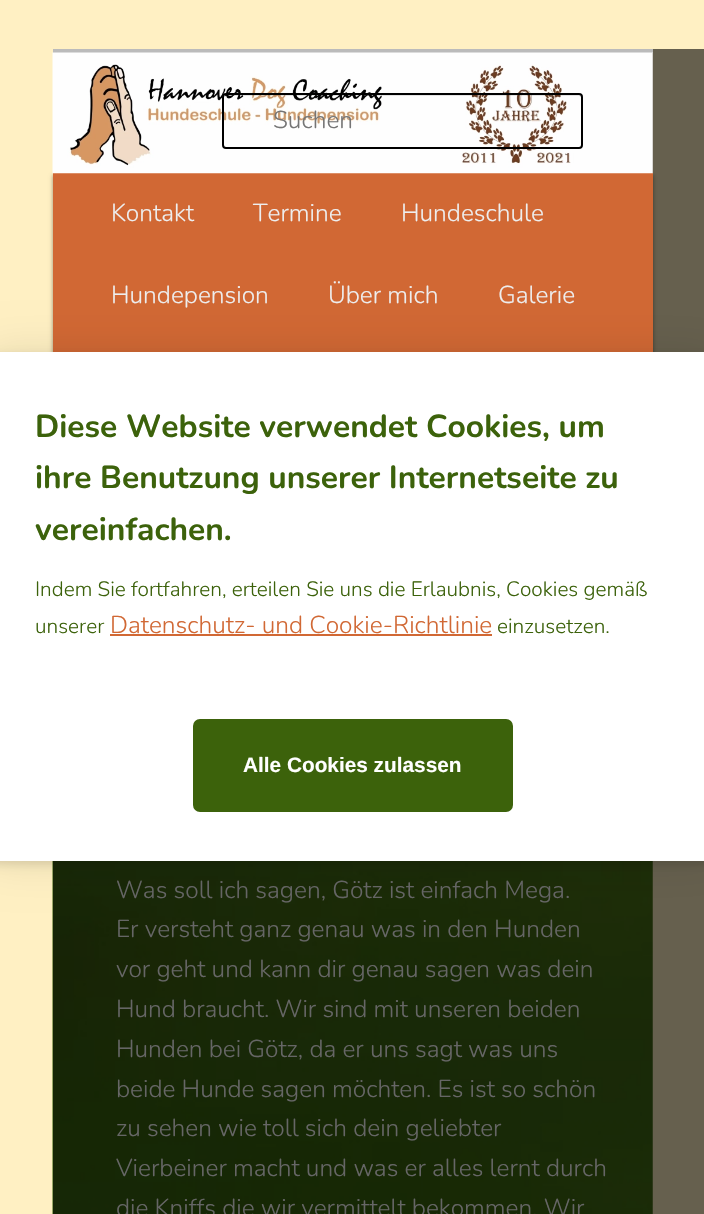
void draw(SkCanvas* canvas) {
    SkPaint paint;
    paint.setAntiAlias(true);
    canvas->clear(0xFFFFF0C3);
    paint.setColor(0xFF66604E);
    canvas->drawRect(SkRect::MakeXYWH(652, 49, 52, 1165), paint);
    paint.setColor(0xFFBBBBBB);
    canvas->drawRect(SkRect::MakeXYWH(53, 49, 600, 4), paint);
    paint.setColor(0x66000000);
    paint.setMaskFilter(SkMaskFilter::MakeBlur(kNormal_SkBlurStyle, 2));
    canvas->drawRect(SkRect::MakeXYWH(53, 175, 600, 245), paint);
    paint.setMaskFilter(nullptr);
    paint.setColor(0xFFD16834);
    canvas->drawRect(SkRect::MakeXYWH(53, 173, 600, 179), paint);
    canvas->drawImageRect(SkImages::DeferredFromEncodedData(SkData::MakeFromFileName("img1.png")), SkRect::MakeXYWH(52, 52, 601, 122), SkSamplingOptions());
    paint.setColor(0x1A000000);
    canvas->drawPath(SkPathBuilder().moveTo(226, 96).lineTo(579, 96).cubicTo(580, 96, 581, 97, 581, 98).cubicTo(581, 97, 581, 95, 579, 95).lineTo(226, 95).cubicTo(224, 95, 224, 97, 224, 98).cubicTo(224, 97, 225, 96, 226, 96).close().detach(), paint);
    paint.setStyle(SkPaint::kStroke_Style);
    paint.setStrokeWidth(2);
    paint.setColor(0xFF000000);
    canvas->drawRoundRect(SkRect::MakeXYWH(223, 94, 359, 54), 3, 3, paint);
    SkFont font1(fontMgr->matchFamilyStyle("Nunito", SkFontStyle(300, SkFontStyle::kNormal_Width, SkFontStyle::kUpright_Slant)), 24.5f);
    font1.setSubpixel(true);
    paint.setStyle(SkPaint::kFill_Style);
    paint.setColor(0xFF757575);
    canvas->drawString("Suchen", 273, 128, font1, paint);
    paint.setColor(0xFFEEEEEE);
    canvas->drawString("Kontakt", 111, 221, font1, paint);
    canvas->drawString("Termine", 253, 221, font1, paint);
    canvas->drawString("Hundeschule", 401, 221, font1, paint);
    canvas->drawString("Hundepension", 111, 303, font1, paint);
    canvas->drawString("Über mich", 328, 303, font1, paint);
    canvas->drawString("Galerie", 498, 303, font1, paint);
    canvas->drawImageRect(SkImages::DeferredFromEncodedData(SkData::MakeFromFileName("img2.png")), SkRect::MakeXYWH(52, 861, 601, 353), SkSamplingOptions());
    paint.setColor(0xFF666666);
    canvas->drawString("Was soll ich sagen, Götz ist einfach Mega.", 116, 898, font1, paint);
    canvas->drawString("Er versteht ganz genau was in den Hunden", 116, 937, font1, paint);
    canvas->drawString("vor geht und kann dir genau sagen was dein", 116, 977, font1, paint);
    canvas->drawString("Hund braucht. Wir sind mit unseren beiden", 116, 1017, font1, paint);
    canvas->drawString("Hunden bei Götz, da er uns sagt was uns", 116, 1057, font1, paint);
    canvas->drawString("beide Hunde sagen möchten. Es ist so schön", 116, 1097, font1, paint);
    canvas->drawString("zu sehen wie toll sich dein geliebter", 116, 1136, font1, paint);
    canvas->drawString("Vierbeiner macht und was er alles lernt durch", 116, 1176, font1, paint);
    canvas->drawString("die Kniffs die wir vermittelt bekommen. Wir", 116, 1216, font1, paint);
    paint.setColor(0x1A000000);
    paint.setMaskFilter(SkMaskFilter::MakeBlur(kNormal_SkBlurStyle, 4.5f));
    canvas->drawRoundRect(SkRect::MakeXYWH(-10, 355, 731, 510), 7, 7, paint);
    paint.setMaskFilter(nullptr);
    paint.setMaskFilter(SkMaskFilter::MakeBlur(kNormal_SkBlurStyle, 22));
    canvas->drawRoundRect(SkRect::MakeXYWH(-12, 352, 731, 509), 7, 7, paint);
    paint.setMaskFilter(nullptr);
    paint.setColor(0xFFFFFFFF);
    canvas->drawRect(SkRect::MakeXYWH(0, 352, 704, 509), paint);
    SkFont font2(fontMgr->matchFamilyStyle("Nunito", SkFontStyle::Bold()), 31.8f);
    font2.setSubpixel(true);
    paint.setColor(0xFF3C620B);
    canvas->drawString("Diese Website verwendet Cookies, um", 35, 437, font2, paint);
    canvas->drawString("ihre Benutzung unserer Internetseite zu", 35, 488, font2, paint);
    canvas->drawString("vereinfachen.", 35, 540, font2, paint);
    SkFont font3(fontMgr->matchFamilyStyle("Nunito", SkFontStyle(300, SkFontStyle::kNormal_Width, SkFontStyle::kUpright_Slant)), 20.8f);
    font3.setSubpixel(true);
    canvas->drawString("Indem Sie fortfahren, erteilen Sie uns die Erlaubnis, Cookies gemäß", 35, 596, font3, paint);
    canvas->drawString("unserer", 35, 633, font3, paint);
    paint.setColor(0xFFD16834);
    canvas->drawString("Datenschutz- und Cookie-Richtlinie", 110, 633, font1, paint);
    canvas->drawRect(SkRect::MakeXYWH(110, 634, 382, 2), paint);
    paint.setColor(0xFF3C620B);
    canvas->drawString("einzusetzen.", 497, 633, font3, paint);
    canvas->drawRoundRect(SkRect::MakeXYWH(194, 720, 318, 91), 6, 6, paint);
    paint.setStyle(SkPaint::kStroke_Style);
    canvas->drawRoundRect(SkRect::MakeXYWH(194, 720, 318, 91), 6, 6, paint);
    SkFont font4(fontMgr->matchFamilyStyle("Liberation Sans", SkFontStyle::Bold()), 20.8f);
    font4.setSubpixel(true);
    paint.setStyle(SkPaint::kFill_Style);
    paint.setColor(0xFFFFFFFF);
    canvas->drawString("Alle Cookies zulassen", 243, 772, font4, paint);
}
